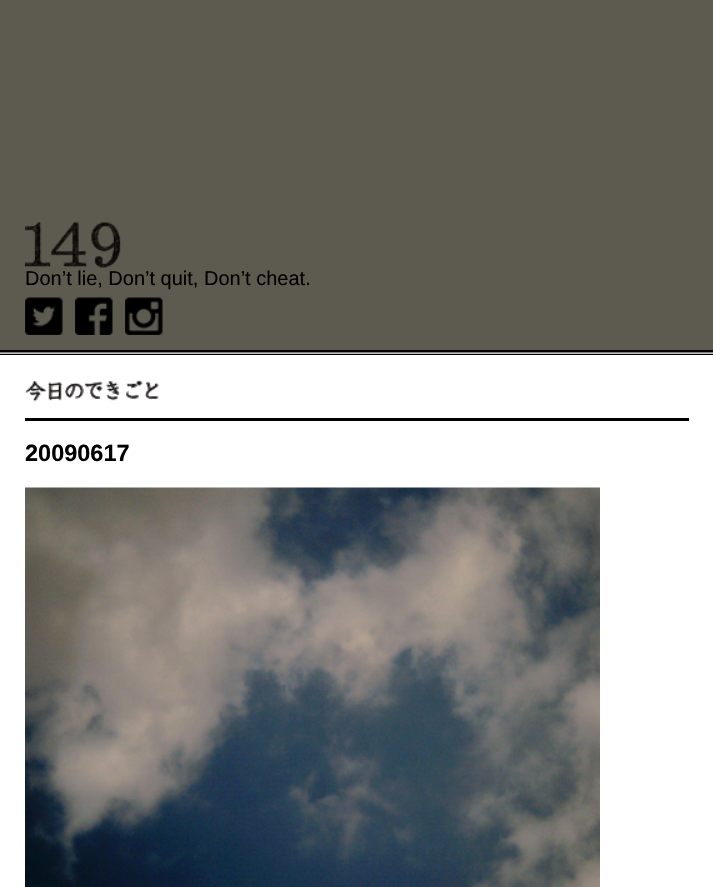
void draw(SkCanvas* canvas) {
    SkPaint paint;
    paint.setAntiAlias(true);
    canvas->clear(0xFF5D5A50);
    canvas->drawImageRect(SkImages::DeferredFromEncodedData(SkData::MakeFromFileName("img1.png")), SkRect::MakeXYWH(0, 350, 713, 5), SkSamplingOptions());
    canvas->drawImageRect(SkImages::DeferredFromEncodedData(SkData::MakeFromFileName("img2.png")), SkRect::MakeXYWH(25, 222, 96, 46), SkSamplingOptions());
    SkFont font1(fontMgr->matchFamilyStyle("Liberation Sans", SkFontStyle::Normal()), 20);
    font1.setSubpixel(true);
    paint.setColor(0xFF000000);
    canvas->drawString("Don’t lie, Don’t quit, Don’t cheat.", 25, 285, font1, paint);
    canvas->drawImageRect(SkImages::DeferredFromEncodedData(SkData::MakeFromFileName("img3.png")), SkRect::MakeXYWH(25, 297, 38, 38), SkSamplingOptions());
    canvas->drawImageRect(SkImages::DeferredFromEncodedData(SkData::MakeFromFileName("img4.png")), SkRect::MakeXYWH(75, 297, 38, 38), SkSamplingOptions());
    canvas->drawImageRect(SkImages::DeferredFromEncodedData(SkData::MakeFromFileName("img5.png")), SkRect::MakeXYWH(125, 297, 38, 38), SkSamplingOptions());
    paint.setColor(0xFFFFFFFF);
    canvas->drawRect(SkRect::MakeXYWH(0, 355, 713, 532), paint);
    canvas->drawImageRect(SkImages::DeferredFromEncodedData(SkData::MakeFromFileName("img6.png")), SkRect::MakeXYWH(25, 380, 134, 22), SkSamplingOptions());
    paint.setColor(0xFF000000);
    canvas->drawRect(SkRect::MakeXYWH(25, 418, 664, 3), paint);
    SkFont font2(fontMgr->matchFamilyStyle("Liberation Sans", SkFontStyle::Bold()), 23.5f);
    font2.setSubpixel(true);
    canvas->drawString("20090617", 25, 461, font2, paint);
    canvas->drawImageRect(SkImages::DeferredFromEncodedData(SkData::MakeFromFileName("img7.png")), SkRect::MakeXYWH(25, 487, 575, 400), SkSamplingOptions());
}
